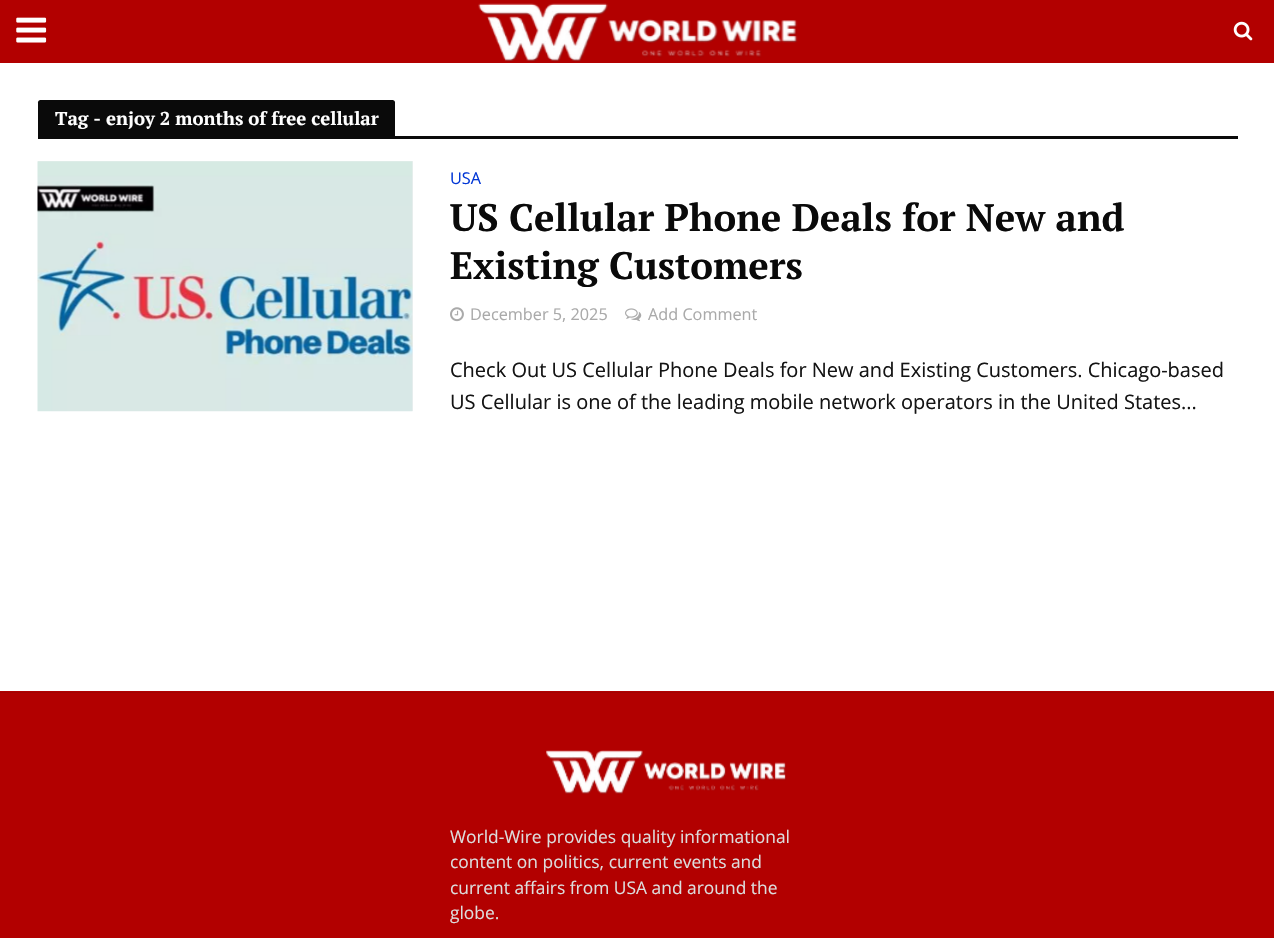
void draw(SkCanvas* canvas) {
    SkPaint paint;
    paint.setAntiAlias(true);
    canvas->clear(0xFFFFFFFF);
    paint.setColor(0xFFB20000);
    canvas->drawRect(SkRect::MakeXYWH(0, 691, 1274, 247), paint);
    paint.setStyle(SkPaint::kStroke_Style);
    paint.setStrokeWidth(1);
    paint.setColor(0x1A141414);
    canvas->drawRect(SkRect::MakeXYWH(-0.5f, 61.5f, 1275, 631), paint);
    paint.setStyle(SkPaint::kFill_Style);
    paint.setColor(0xFFB20000);
    canvas->drawRect(SkRect::MakeXYWH(0, 0, 1274, 63), paint);
    canvas->drawImageRect(SkImages::DeferredFromEncodedData(SkData::MakeFromFileName("img1.png")), SkRect::MakeXYWH(16, 17, 31, 26), SkSamplingOptions());
    canvas->drawImageRect(SkImages::DeferredFromEncodedData(SkData::MakeFromFileName("img2.png")), SkRect::MakeXYWH(478, 3, 320, 59), SkSamplingOptions());
    canvas->drawImageRect(SkImages::DeferredFromEncodedData(SkData::MakeFromFileName("img3.png")), SkRect::MakeXYWH(1233, 21, 20, 20), SkSamplingOptions());
    paint.setColor(0xFF0A0A0A);
    canvas->drawPath(SkPathBuilder().moveTo(40.5f, 100).lineTo(392.5f, 100).cubicTo(394, 100, 395, 101, 395, 102.5f).lineTo(395, 136).lineTo(38, 136).lineTo(38, 102.5f).cubicTo(38, 101, 39, 100, 40.5f, 100).close().detach(), paint);
    SkFont font1(fontMgr->matchFamilyStyle("PT Serif", SkFontStyle::Bold()), 18.6f);
    font1.setSubpixel(true);
    paint.setColor(0xFFFFFFFF);
    canvas->drawString("Tag - enjoy 2 months of free cellular", 55, 125, font1, paint);
    paint.setColor(0xFF0A0A0A);
    canvas->drawRect(SkRect::MakeXYWH(38, 136, 1200, 3), paint);
    paint.setColor(0xFFF3F3F3);
    canvas->drawRect(SkRect::MakeXYWH(38, 161, 375, 250), paint);
    canvas->drawImageRect(SkImages::DeferredFromEncodedData(SkData::MakeFromFileName("img4.png")), SkRect::MakeXYWH(37, 161, 376, 251), SkSamplingOptions());
    SkFont font2(fontMgr->matchFamilyStyle("Open Sans", SkFontStyle::Normal()), 16.25f);
    font2.setSubpixel(true);
    paint.setColor(0xFF0237D6);
    canvas->drawString("USA", 450, 184, font2, paint);
    SkFont font3(fontMgr->matchFamilyStyle("PT Serif", SkFontStyle::Bold()), 38.25f);
    font3.setSubpixel(true);
    paint.setColor(0xFF0A0A0A);
    canvas->drawString("US Cellular Phone Deals for New and", 450, 231, font3, paint);
    canvas->drawString("Existing Customers", 450, 279, font3, paint);
    canvas->drawImageRect(SkImages::DeferredFromEncodedData(SkData::MakeFromFileName("img5.png")), SkRect::MakeXYWH(450, 307, 14, 15), SkSamplingOptions());
    paint.setColor(0xFFAAAAAA);
    canvas->drawString("December 5, 2025", 470, 320, font2, paint);
    canvas->drawImageRect(SkImages::DeferredFromEncodedData(SkData::MakeFromFileName("img6.png")), SkRect::MakeXYWH(625, 308, 17, 14), SkSamplingOptions());
    canvas->drawString("Add Comment", 648, 320, font2, paint);
    SkFont font4(fontMgr->matchFamilyStyle("Open Sans", SkFontStyle::Normal()), 20);
    font4.setSubpixel(true);
    paint.setColor(0xFF141414);
    canvas->drawString("Check Out US Cellular Phone Deals for New and Existing Customers. Chicago-based", 450, 377, font4, paint);
    canvas->drawString("US Cellular is one of the leading mobile network operators in the United States...", 450, 409, font4, paint);
    canvas->drawImageRect(SkImages::DeferredFromEncodedData(SkData::MakeFromFileName("img7.png")), SkRect::MakeXYWH(546, 750, 241, 45), SkSamplingOptions());
    SkFont font5(fontMgr->matchFamilyStyle("Open Sans", SkFontStyle::Normal()), 17.4f);
    font5.setSubpixel(true);
    paint.setColor(0xFFDDDDDD);
    canvas->drawString("World-Wire provides quality informational", 450, 843, font5, paint);
    canvas->drawString("content on politics, current events and", 450, 868, font5, paint);
    canvas->drawString("current affairs from USA and around the", 450, 894, font5, paint);
    canvas->drawString("globe.", 450, 919, font5, paint);
}
